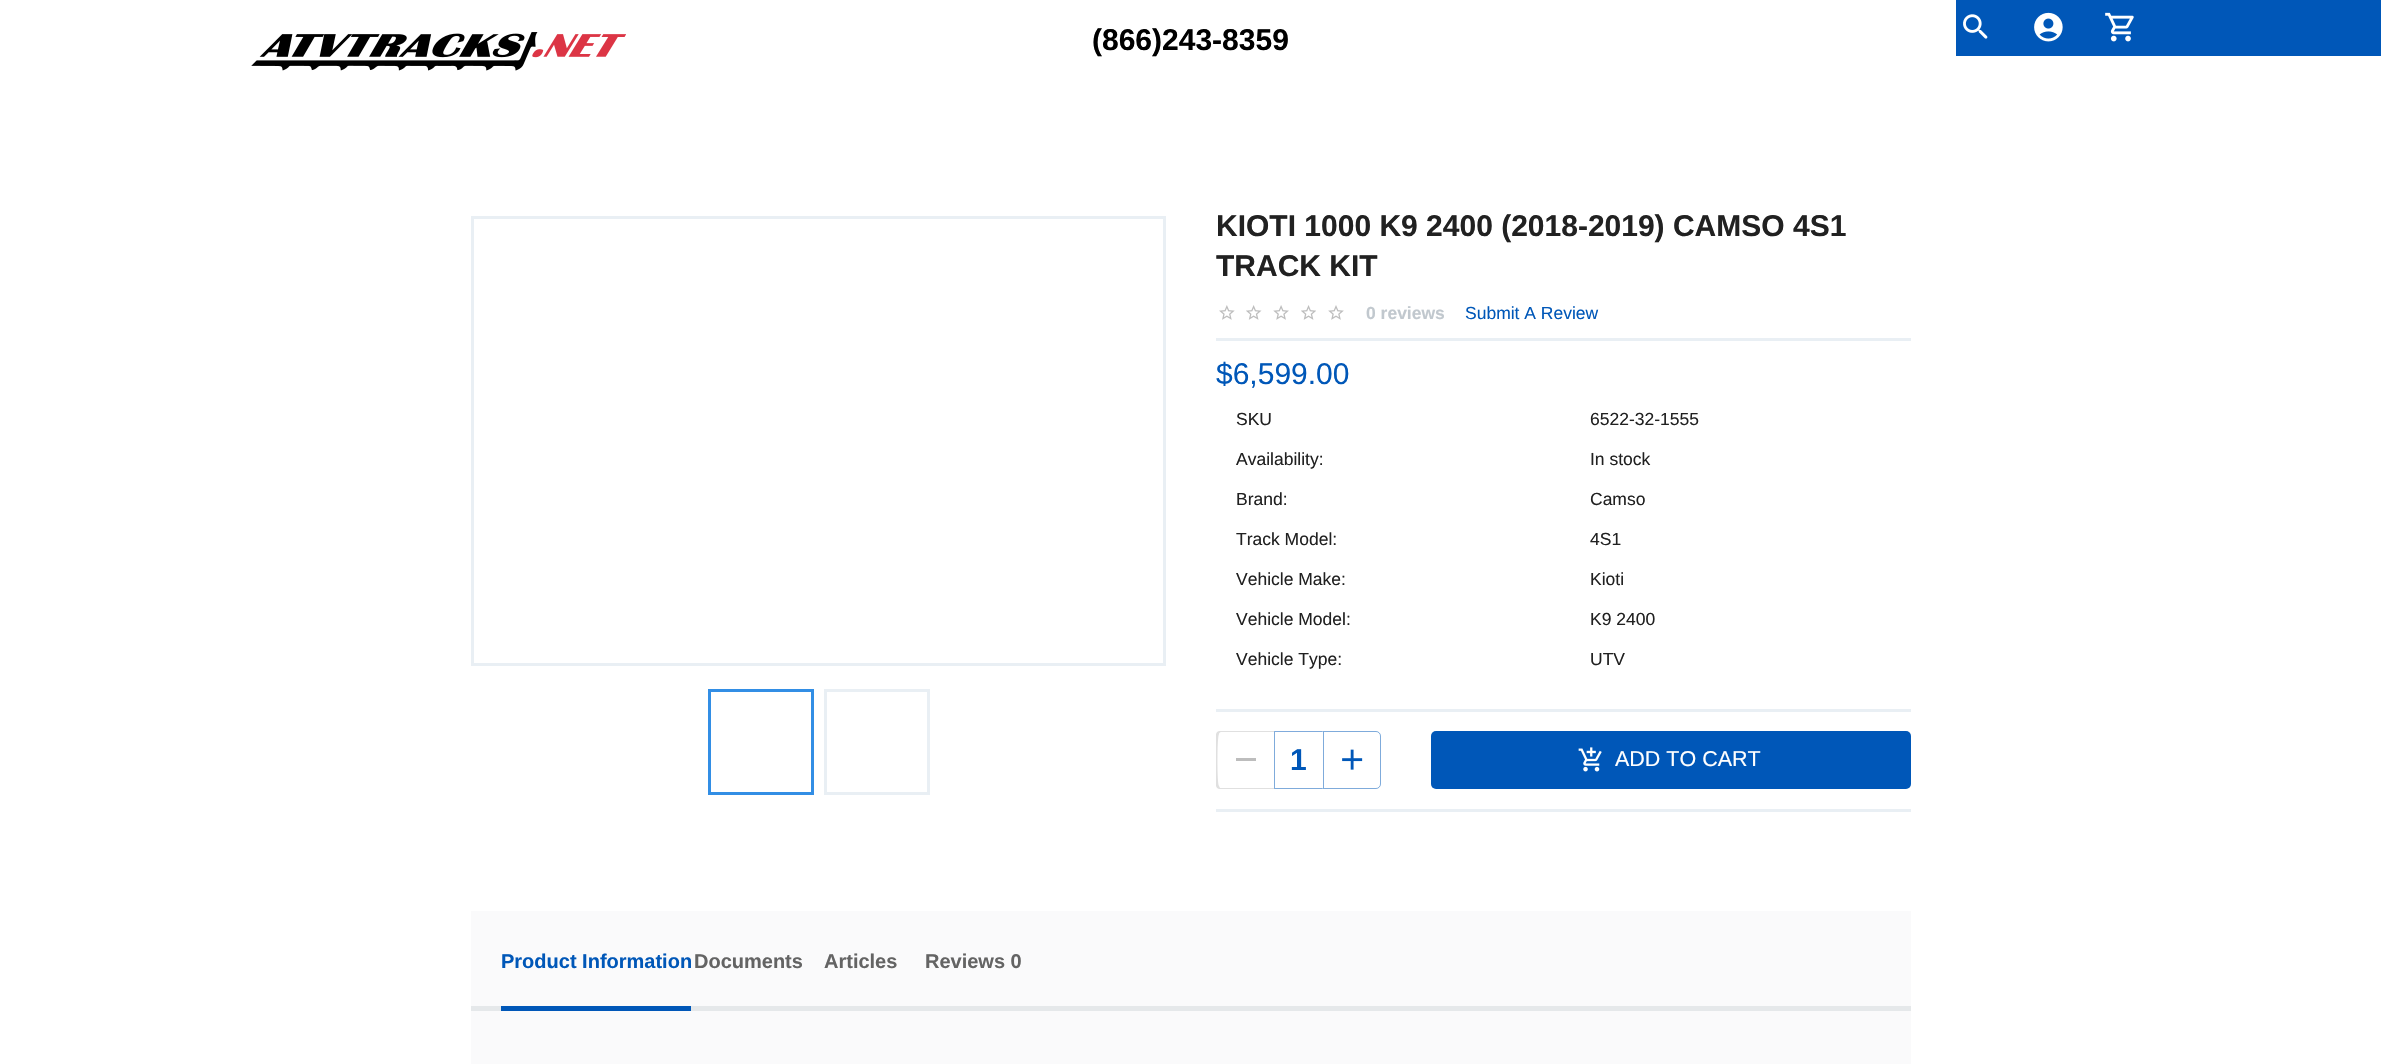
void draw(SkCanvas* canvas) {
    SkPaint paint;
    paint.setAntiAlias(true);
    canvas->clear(0xFFFFFFFF);
    canvas->save();
    canvas->clipRect(SkRect::MakeXYWH(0, 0, 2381, 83));
    canvas->clipPath(SkPathBuilder(SkPathFillType::kEvenOdd).moveTo(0, 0).lineTo(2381, 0).lineTo(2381, 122).lineTo(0, 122).close().moveTo(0, 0).lineTo(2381, 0).lineTo(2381, 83).lineTo(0, 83).close().detach(), true);
    paint.setColor(0x29000000);
    paint.setMaskFilter(SkMaskFilter::MakeBlur(kNormal_SkBlurStyle, 12.5f));
    canvas->drawRect(SkRect::MakeXYWH(0, 0, 2381, 83), paint);
    paint.setMaskFilter(nullptr);
    canvas->restore();
    canvas->drawImageRect(SkImages::DeferredFromEncodedData(SkData::MakeFromFileName("img1.png")), SkRect::MakeXYWH(251, 32, 375, 39), SkSamplingOptions());
    SkFont font1(fontMgr->matchFamilyStyle("Liberation Sans", SkFontStyle::Bold()), 30);
    font1.setSubpixel(true);
    paint.setColor(0xFF000000);
    canvas->drawString("(866)243-8359", 1092, 50, font1, paint);
    paint.setColor(0xFF0057B8);
    canvas->drawRect(SkRect::MakeXYWH(1956, 0, 425, 56), paint);
    canvas->drawImageRect(SkImages::DeferredFromEncodedData(SkData::MakeFromFileName("img2.png")), SkRect::MakeXYWH(1963, 14, 25, 25), SkSamplingOptions());
    canvas->drawImageRect(SkImages::DeferredFromEncodedData(SkData::MakeFromFileName("img3.png")), SkRect::MakeXYWH(2034, 12, 29, 30), SkSamplingOptions());
    canvas->drawImageRect(SkImages::DeferredFromEncodedData(SkData::MakeFromFileName("img4.png")), SkRect::MakeXYWH(2105, 12, 29, 30), SkSamplingOptions());
    paint.setStyle(SkPaint::kStroke_Style);
    paint.setStrokeWidth(3);
    paint.setColor(0xFFE9EFF4);
    canvas->drawRect(SkRect::MakeXYWH(472.5f, 217.5f, 692, 447), paint);
    paint.setColor(0xFF328EE5);
    canvas->drawRect(SkRect::MakeXYWH(709.5f, 690.5f, 103, 103), paint);
    paint.setColor(0xFFE9EFF4);
    canvas->drawRect(SkRect::MakeXYWH(825.5f, 690.5f, 103, 103), paint);
    paint.setStyle(SkPaint::kFill_Style);
    paint.setColor(0xFF212121);
    canvas->drawString("KIOTI 1000 K9 2400 (2018-2019) CAMSO 4S1", 1216, 236, font1, paint);
    canvas->drawString("TRACK KIT", 1216, 276, font1, paint);
    canvas->drawImageRect(SkImages::DeferredFromEncodedData(SkData::MakeFromFileName("img5.png")), SkRect::MakeXYWH(1219, 305, 16, 15), SkSamplingOptions());
    canvas->drawImageRect(SkImages::DeferredFromEncodedData(SkData::MakeFromFileName("img6.png")), SkRect::MakeXYWH(1246, 305, 16, 15), SkSamplingOptions());
    canvas->drawImageRect(SkImages::DeferredFromEncodedData(SkData::MakeFromFileName("img7.png")), SkRect::MakeXYWH(1273, 305, 16, 15), SkSamplingOptions());
    canvas->drawImageRect(SkImages::DeferredFromEncodedData(SkData::MakeFromFileName("img8.png")), SkRect::MakeXYWH(1301, 305, 15, 15), SkSamplingOptions());
    canvas->drawImageRect(SkImages::DeferredFromEncodedData(SkData::MakeFromFileName("img9.png")), SkRect::MakeXYWH(1328, 305, 16, 15), SkSamplingOptions());
    SkFont font2(fontMgr->matchFamilyStyle("Liberation Sans", SkFontStyle::Bold()), 17.5f);
    font2.setSubpixel(true);
    paint.setColor(0xFFC1C8CE);
    canvas->drawString("0 reviews", 1366, 319, font2, paint);
    SkFont font3(fontMgr->matchFamilyStyle("Liberation Sans", SkFontStyle::Normal()), 17.5f);
    font3.setSubpixel(true);
    paint.setColor(0xFF0057B8);
    canvas->drawString("Submit A Review", 1465, 319, font3, paint);
    paint.setColor(0xFFE9EFF4);
    canvas->drawRect(SkRect::MakeXYWH(1216, 338, 695, 3), paint);
    SkFont font4(fontMgr->matchFamilyStyle("Liberation Sans", SkFontStyle::Normal()), 30);
    font4.setSubpixel(true);
    paint.setColor(0xFF0057B8);
    canvas->drawString("$6,599.00", 1216, 384, font4, paint);
    paint.setColor(0xFF212121);
    canvas->drawString("SKU", 1236, 425, font3, paint);
    canvas->drawString("6522-32-1555", 1590, 425, font3, paint);
    canvas->drawString("Availability:", 1236, 465, font3, paint);
    canvas->drawString("In stock", 1590, 465, font3, paint);
    canvas->drawString("Brand:", 1236, 505, font3, paint);
    canvas->drawString("Camso", 1590, 505, font3, paint);
    canvas->drawString("Track Model:", 1236, 545, font3, paint);
    canvas->drawString("4S1", 1590, 545, font3, paint);
    canvas->drawString("Vehicle Make:", 1236, 585, font3, paint);
    canvas->drawString("Kioti", 1590, 585, font3, paint);
    canvas->drawString("Vehicle Model:", 1236, 625, font3, paint);
    canvas->drawString("K9 2400", 1590, 625, font3, paint);
    canvas->drawString("Vehicle Type:", 1236, 665, font3, paint);
    canvas->drawString("UTV", 1590, 665, font3, paint);
    paint.setColor(0xFFE9EFF4);
    canvas->drawRect(SkRect::MakeXYWH(1216, 709, 695, 3), paint);
    paint.setColor(0xFFE0E0E0);
    canvas->drawPath(SkPathBuilder().moveTo(1221, 732).cubicTo(1220, 732, 1219, 733, 1219, 734).lineTo(1217, 732).lineTo(1219, 731).lineTo(1275, 731).lineTo(1274, 732).close().moveTo(1275, 789).lineTo(1219, 789).lineTo(1217, 788).lineTo(1219, 786).lineTo(1220, 788).lineTo(1274, 788).close().detach(), paint);
    paint.setColor(0x1F000000);
    canvas->drawPath(SkPathBuilder().moveTo(1216, 734).lineTo(1217, 732).lineTo(1219, 734).cubicTo(1217, 736, 1217, 784, 1219, 786).lineTo(1217, 788).lineTo(1216, 786).close().detach(), paint);
    paint.setColor(0xFFBDBDBD);
    canvas->drawRect(SkRect::MakeXYWH(1236, 758, 20, 3), paint);
    paint.setColor(0xFF80ABDC);
    canvas->drawPath(SkPathBuilder().moveTo(1274, 731).lineTo(1324, 731).lineTo(1322, 732).lineTo(1275, 732).close().detach(), paint);
    paint.setColor(0x800057B8);
    canvas->drawPath(SkPathBuilder().moveTo(1324, 789).lineTo(1274, 789).lineTo(1275, 788).lineTo(1322, 788).close().detach(), paint);
    canvas->drawPath(SkPathBuilder().moveTo(1274, 789).lineTo(1274, 731).lineTo(1275, 732).lineTo(1275, 788).close().detach(), paint);
    paint.setColor(0xFF0057B8);
    canvas->drawString("1", 1290, 770, font1, paint);
    paint.setStyle(SkPaint::kStroke_Style);
    paint.setStrokeWidth(1);
    paint.setColor(0x800057B8);
    canvas->drawPath(SkPathBuilder().moveTo(1323.5f, 731.5f).lineTo(1376, 731.5f).cubicTo(1378.5f, 731.5f, 1380.5f, 733.5f, 1380.5f, 736).lineTo(1380.5f, 784).cubicTo(1380.5f, 786.5f, 1378.5f, 788.5f, 1376, 788.5f).lineTo(1323.5f, 788.5f).close().detach(), paint);
    canvas->drawImageRect(SkImages::DeferredFromEncodedData(SkData::MakeFromFileName("img10.png")), SkRect::MakeXYWH(1342, 749, 21, 21), SkSamplingOptions());
    paint.setStyle(SkPaint::kFill_Style);
    paint.setColor(0xFF0057B8);
    canvas->drawRoundRect(SkRect::MakeXYWH(1431, 731, 480, 58), 5, 5, paint);
    canvas->drawImageRect(SkImages::DeferredFromEncodedData(SkData::MakeFromFileName("img11.png")), SkRect::MakeXYWH(1578, 747, 24, 25), SkSamplingOptions());
    SkFont font5(fontMgr->matchFamilyStyle("Liberation Sans", SkFontStyle::Normal()), 21.5f);
    font5.setSubpixel(true);
    paint.setColor(0xFFFFFFFF);
    canvas->drawString("ADD TO CART", 1615, 766, font5, paint);
    paint.setColor(0xFFE9EFF4);
    canvas->drawRect(SkRect::MakeXYWH(1216, 809, 695, 3), paint);
    paint.setColor(0xFFFAFAFB);
    canvas->drawRect(SkRect::MakeXYWH(471, 911, 1440, 153), paint);
    SkFont font6(fontMgr->matchFamilyStyle("Liberation Sans", SkFontStyle::Bold()), 20);
    font6.setSubpixel(true);
    paint.setColor(0xFF0057B8);
    canvas->drawString("Product Information", 501, 968, font6, paint);
    paint.setColor(0xFFE5E8EA);
    canvas->drawRect(SkRect::MakeXYWH(471, 1006, 1440, 5), paint);
    paint.setColor(0xFF0057B8);
    canvas->drawRect(SkRect::MakeXYWH(501, 1006, 190, 5), paint);
    paint.setColor(0xFF646464);
    canvas->drawString("Documents", 694, 968, font6, paint);
    canvas->drawString("Articles", 824, 968, font6, paint);
    canvas->drawString("Reviews 0", 925, 968, font6, paint);
}
